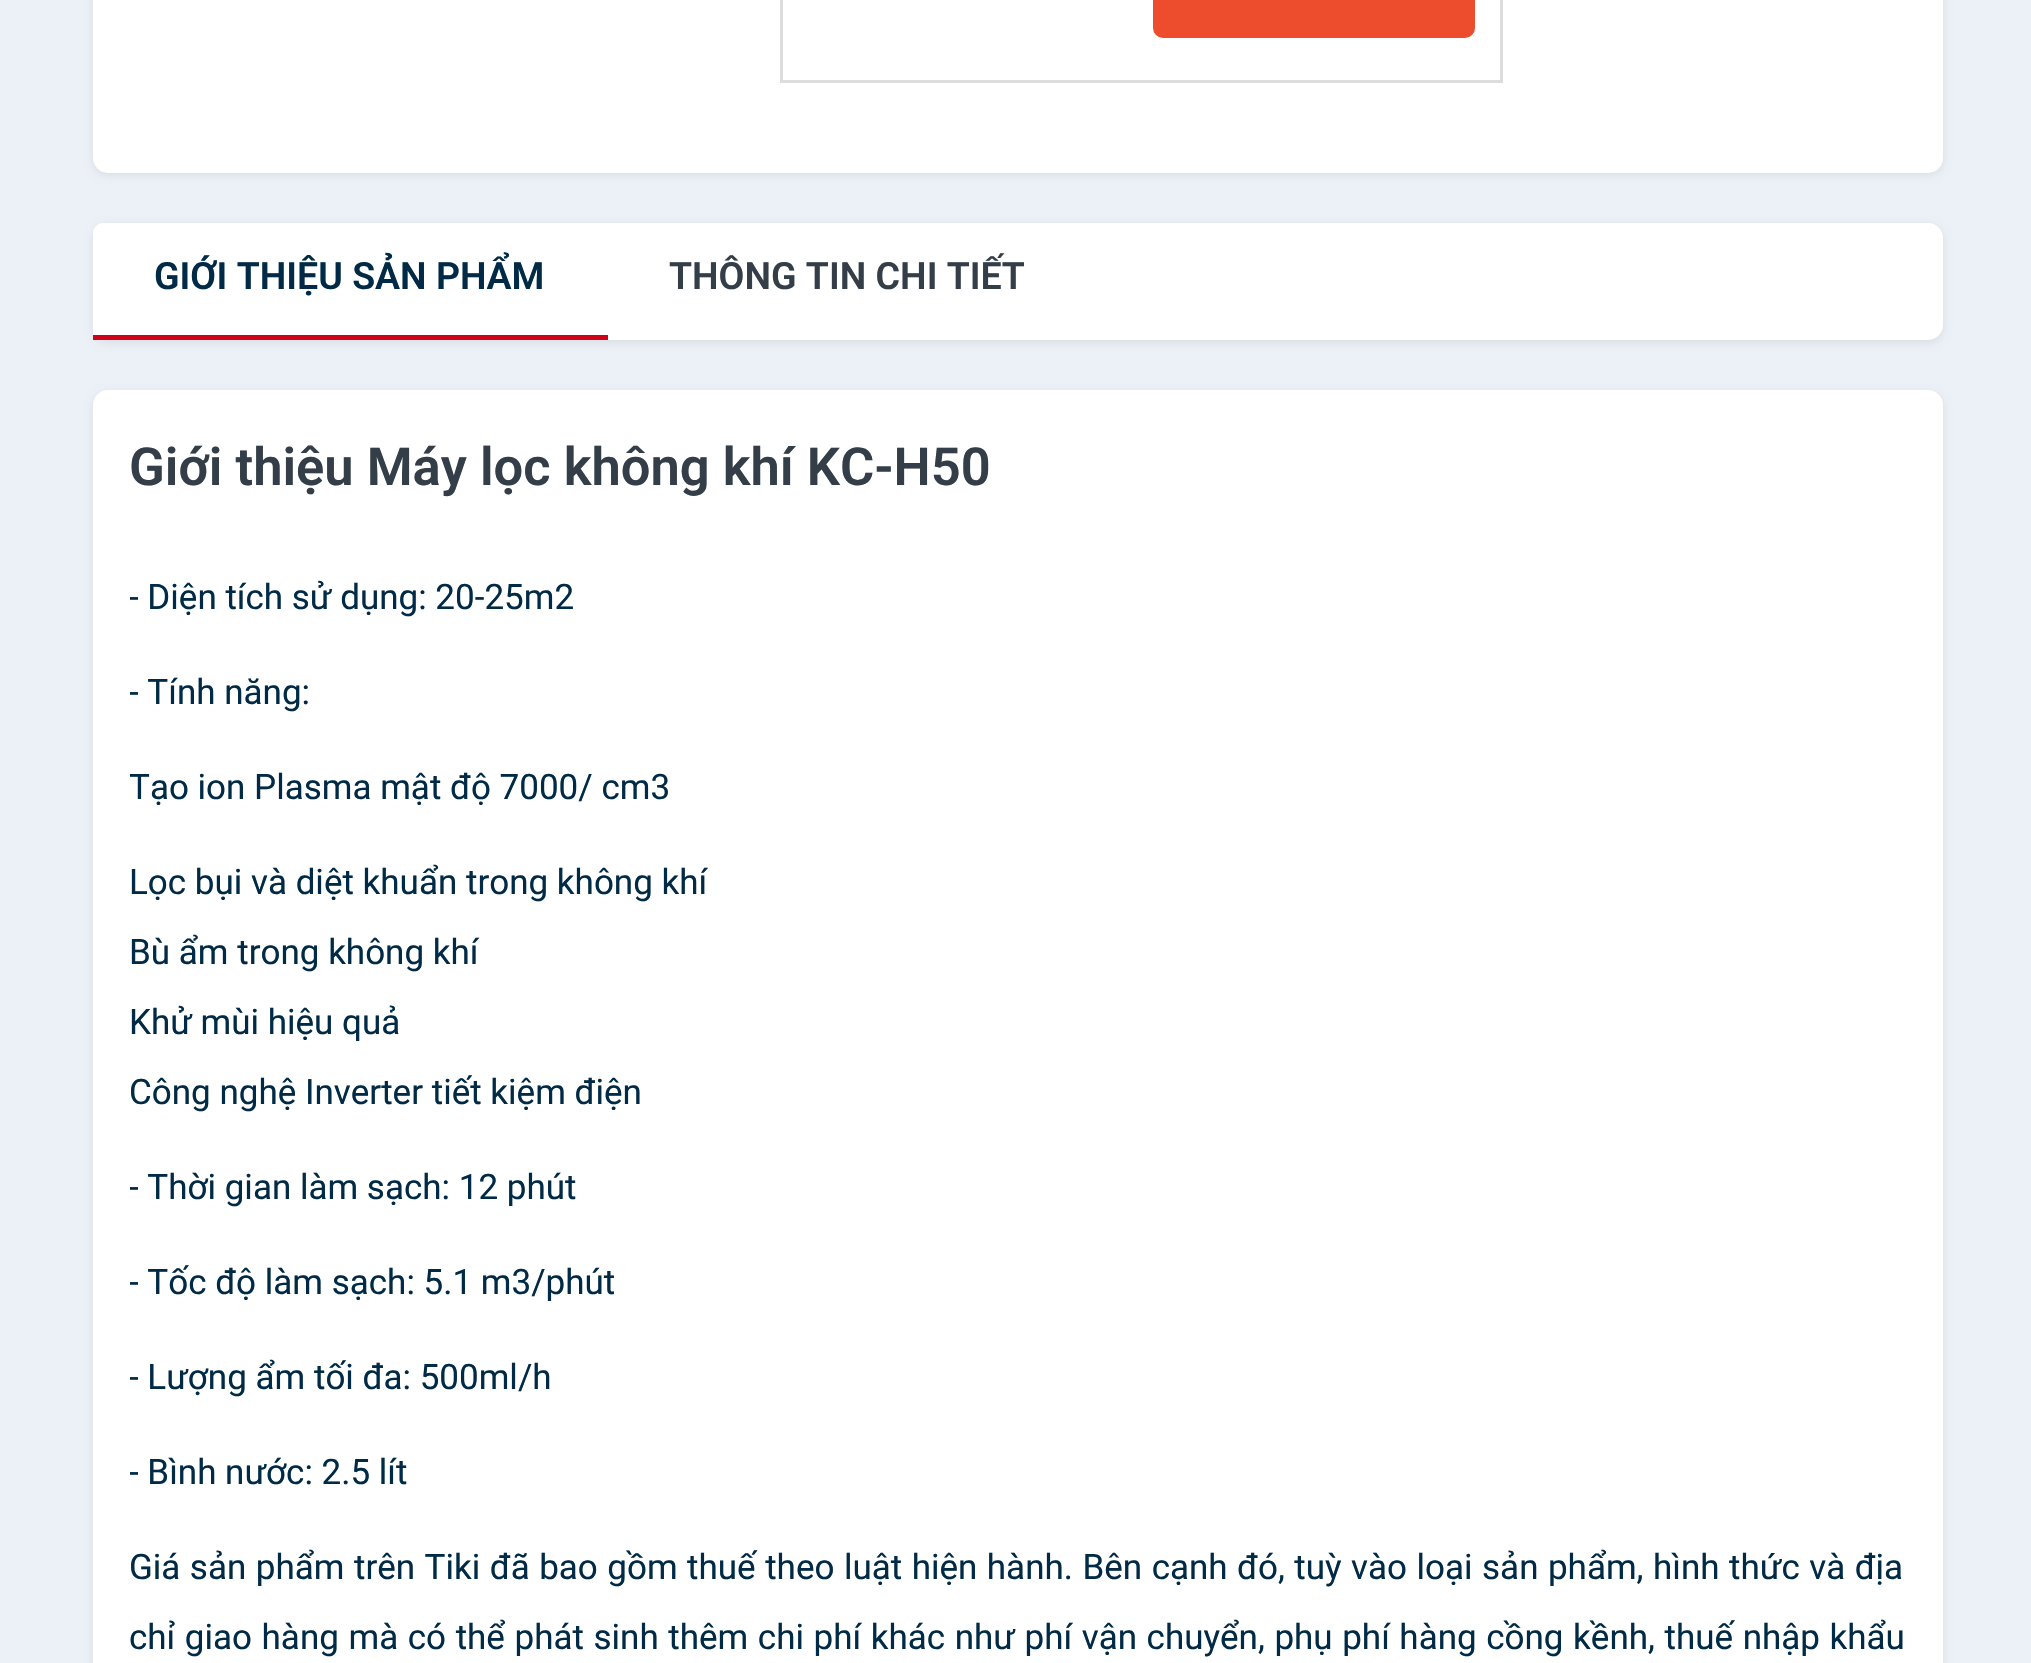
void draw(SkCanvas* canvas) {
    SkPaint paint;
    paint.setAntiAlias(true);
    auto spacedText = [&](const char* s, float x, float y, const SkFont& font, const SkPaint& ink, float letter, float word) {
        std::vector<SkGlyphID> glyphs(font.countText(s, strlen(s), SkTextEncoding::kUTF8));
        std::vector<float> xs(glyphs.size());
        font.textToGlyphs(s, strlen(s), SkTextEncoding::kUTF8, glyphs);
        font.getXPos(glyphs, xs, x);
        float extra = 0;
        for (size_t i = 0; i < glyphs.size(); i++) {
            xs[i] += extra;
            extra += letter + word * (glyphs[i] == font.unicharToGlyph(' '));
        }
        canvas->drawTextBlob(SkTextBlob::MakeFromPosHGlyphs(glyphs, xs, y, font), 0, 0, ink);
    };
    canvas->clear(0xFFECF1F7);
    paint.setColor(0x14000000);
    paint.setMaskFilter(SkMaskFilter::MakeBlur(kNormal_SkBlurStyle, 4));
    canvas->drawRoundRect(SkRect::MakeXYWH(93, -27, 1850, 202), 15, 15, paint);
    paint.setMaskFilter(nullptr);
    paint.setColor(0xFFFFFFFF);
    canvas->drawRoundRect(SkRect::MakeXYWH(93, -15, 1850, 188), 15, 15, paint);
    paint.setColor(0xFFDDDDDD);
    canvas->drawRect(SkRect::MakeXYWH(1500, 0, 3, 83), paint);
    canvas->drawRect(SkRect::MakeXYWH(780, 80, 723, 3), paint);
    canvas->drawRect(SkRect::MakeXYWH(780, 0, 3, 83), paint);
    paint.setColor(0xFFEE4D2D);
    canvas->drawRoundRect(SkRect::MakeXYWH(1155.5f, -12.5f, 317, 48), 7.5f, 7.5f, paint);
    paint.setStyle(SkPaint::kStroke_Style);
    paint.setStrokeWidth(5);
    canvas->drawRoundRect(SkRect::MakeXYWH(1155.5f, -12.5f, 317, 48), 7.5f, 7.5f, paint);
    paint.setStyle(SkPaint::kFill_Style);
    paint.setColor(0x14000000);
    paint.setMaskFilter(SkMaskFilter::MakeBlur(kNormal_SkBlurStyle, 4));
    canvas->drawRoundRect(SkRect::MakeXYWH(93, 225, 1850, 118), 15, 15, paint);
    paint.setMaskFilter(nullptr);
    paint.setColor(0xFFFFFFFF);
    canvas->drawRoundRect(SkRect::MakeXYWH(93, 223, 1850, 117), 15, 15, paint);
    canvas->drawPath(SkPathBuilder().moveTo(103, 223).lineTo(608, 223).lineTo(608, 340).lineTo(93, 340).lineTo(93, 233).cubicTo(93, 227.5f, 97.5f, 223, 103, 223).close().detach(), paint);
    paint.setColor(0xFFD0021B);
    canvas->drawRect(SkRect::MakeXYWH(93, 335, 515, 5), paint);
    SkFont font1(fontMgr->matchFamilyStyle("Roboto", SkFontStyle(600, SkFontStyle::kNormal_Width, SkFontStyle::kUpright_Slant)), 37.5f);
    font1.setSubpixel(true);
    paint.setColor(0xFF002A46);
    canvas->drawString("GIỚI THIỆU SẢN PHẨM", 154, 289, font1, paint);
    paint.setColor(0xFF333E48);
    canvas->drawString("THÔNG TIN CHI TIẾT", 669, 289, font1, paint);
    paint.setColor(0x14000000);
    paint.setMaskFilter(SkMaskFilter::MakeBlur(kNormal_SkBlurStyle, 4));
    canvas->drawRoundRect(SkRect::MakeXYWH(93, 393, 1850, 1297), 15, 15, paint);
    paint.setMaskFilter(nullptr);
    paint.setColor(0xFFFFFFFF);
    canvas->drawRoundRect(SkRect::MakeXYWH(93, 390, 1850, 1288), 15, 15, paint);
    SkFont font2(fontMgr->matchFamilyStyle("Roboto", SkFontStyle(600, SkFontStyle::kNormal_Width, SkFontStyle::kUpright_Slant)), 52.5f);
    font2.setSubpixel(true);
    paint.setColor(0xFF333E48);
    canvas->drawString("Giới thiệu Máy lọc không khí KC-H50", 129, 485, font2, paint);
    canvas->save();
    canvas->clipRect(SkRect::MakeXYWH(130, 428, 1775, 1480));
    SkFont font3(fontMgr->matchFamilyStyle("Roboto", SkFontStyle::Normal()), 35);
    font3.setSubpixel(true);
    paint.setColor(0xFF002A46);
    canvas->drawString("- Diện tích sử dụng: 20-25m2", 129, 609, font3, paint);
    canvas->drawString("- Tính năng:", 129, 704, font3, paint);
    canvas->drawString("Tạo ion Plasma mật độ 7000/ cm3", 129, 799, font3, paint);
    canvas->restore();
    canvas->drawString("Lọc bụi và diệt khuẩn trong không khí", 129, 894, font3, paint);
    canvas->drawString("Bù ẩm trong không khí", 129, 964, font3, paint);
    canvas->drawString("Khử mùi hiệu quả", 129, 1034, font3, paint);
    canvas->drawString("Công nghệ Inverter tiết kiệm điện", 129, 1104, font3, paint);
    canvas->save();
    canvas->clipRect(SkRect::MakeXYWH(130, 428, 1775, 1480));
    canvas->drawString("- Thời gian làm sạch: 12 phút", 129, 1199, font3, paint);
    canvas->drawString("- Tốc độ làm sạch: 5.1 m3/phút", 129, 1294, font3, paint);
    canvas->drawString("- Lượng ẩm tối đa: 500ml/h", 129, 1389, font3, paint);
    canvas->drawString("- Bình nước: 2.5 lít", 129, 1484, font3, paint);
    canvas->restore();
    spacedText("Giá sản phẩm trên Tiki đã bao gồm thuế theo luật hiện hành. Bên cạnh đó, tuỳ vào loại sản phẩm, hình thức và địa", 129, 1579, font3, paint, 0, 0.8f);
    spacedText("chỉ giao hàng mà có thể phát sinh thêm chi phí khác như phí vận chuyển, phụ phí hàng cồng kềnh, thuế nhập khẩu", 129, 1649, font3, paint, 0, 0.9f);
}
